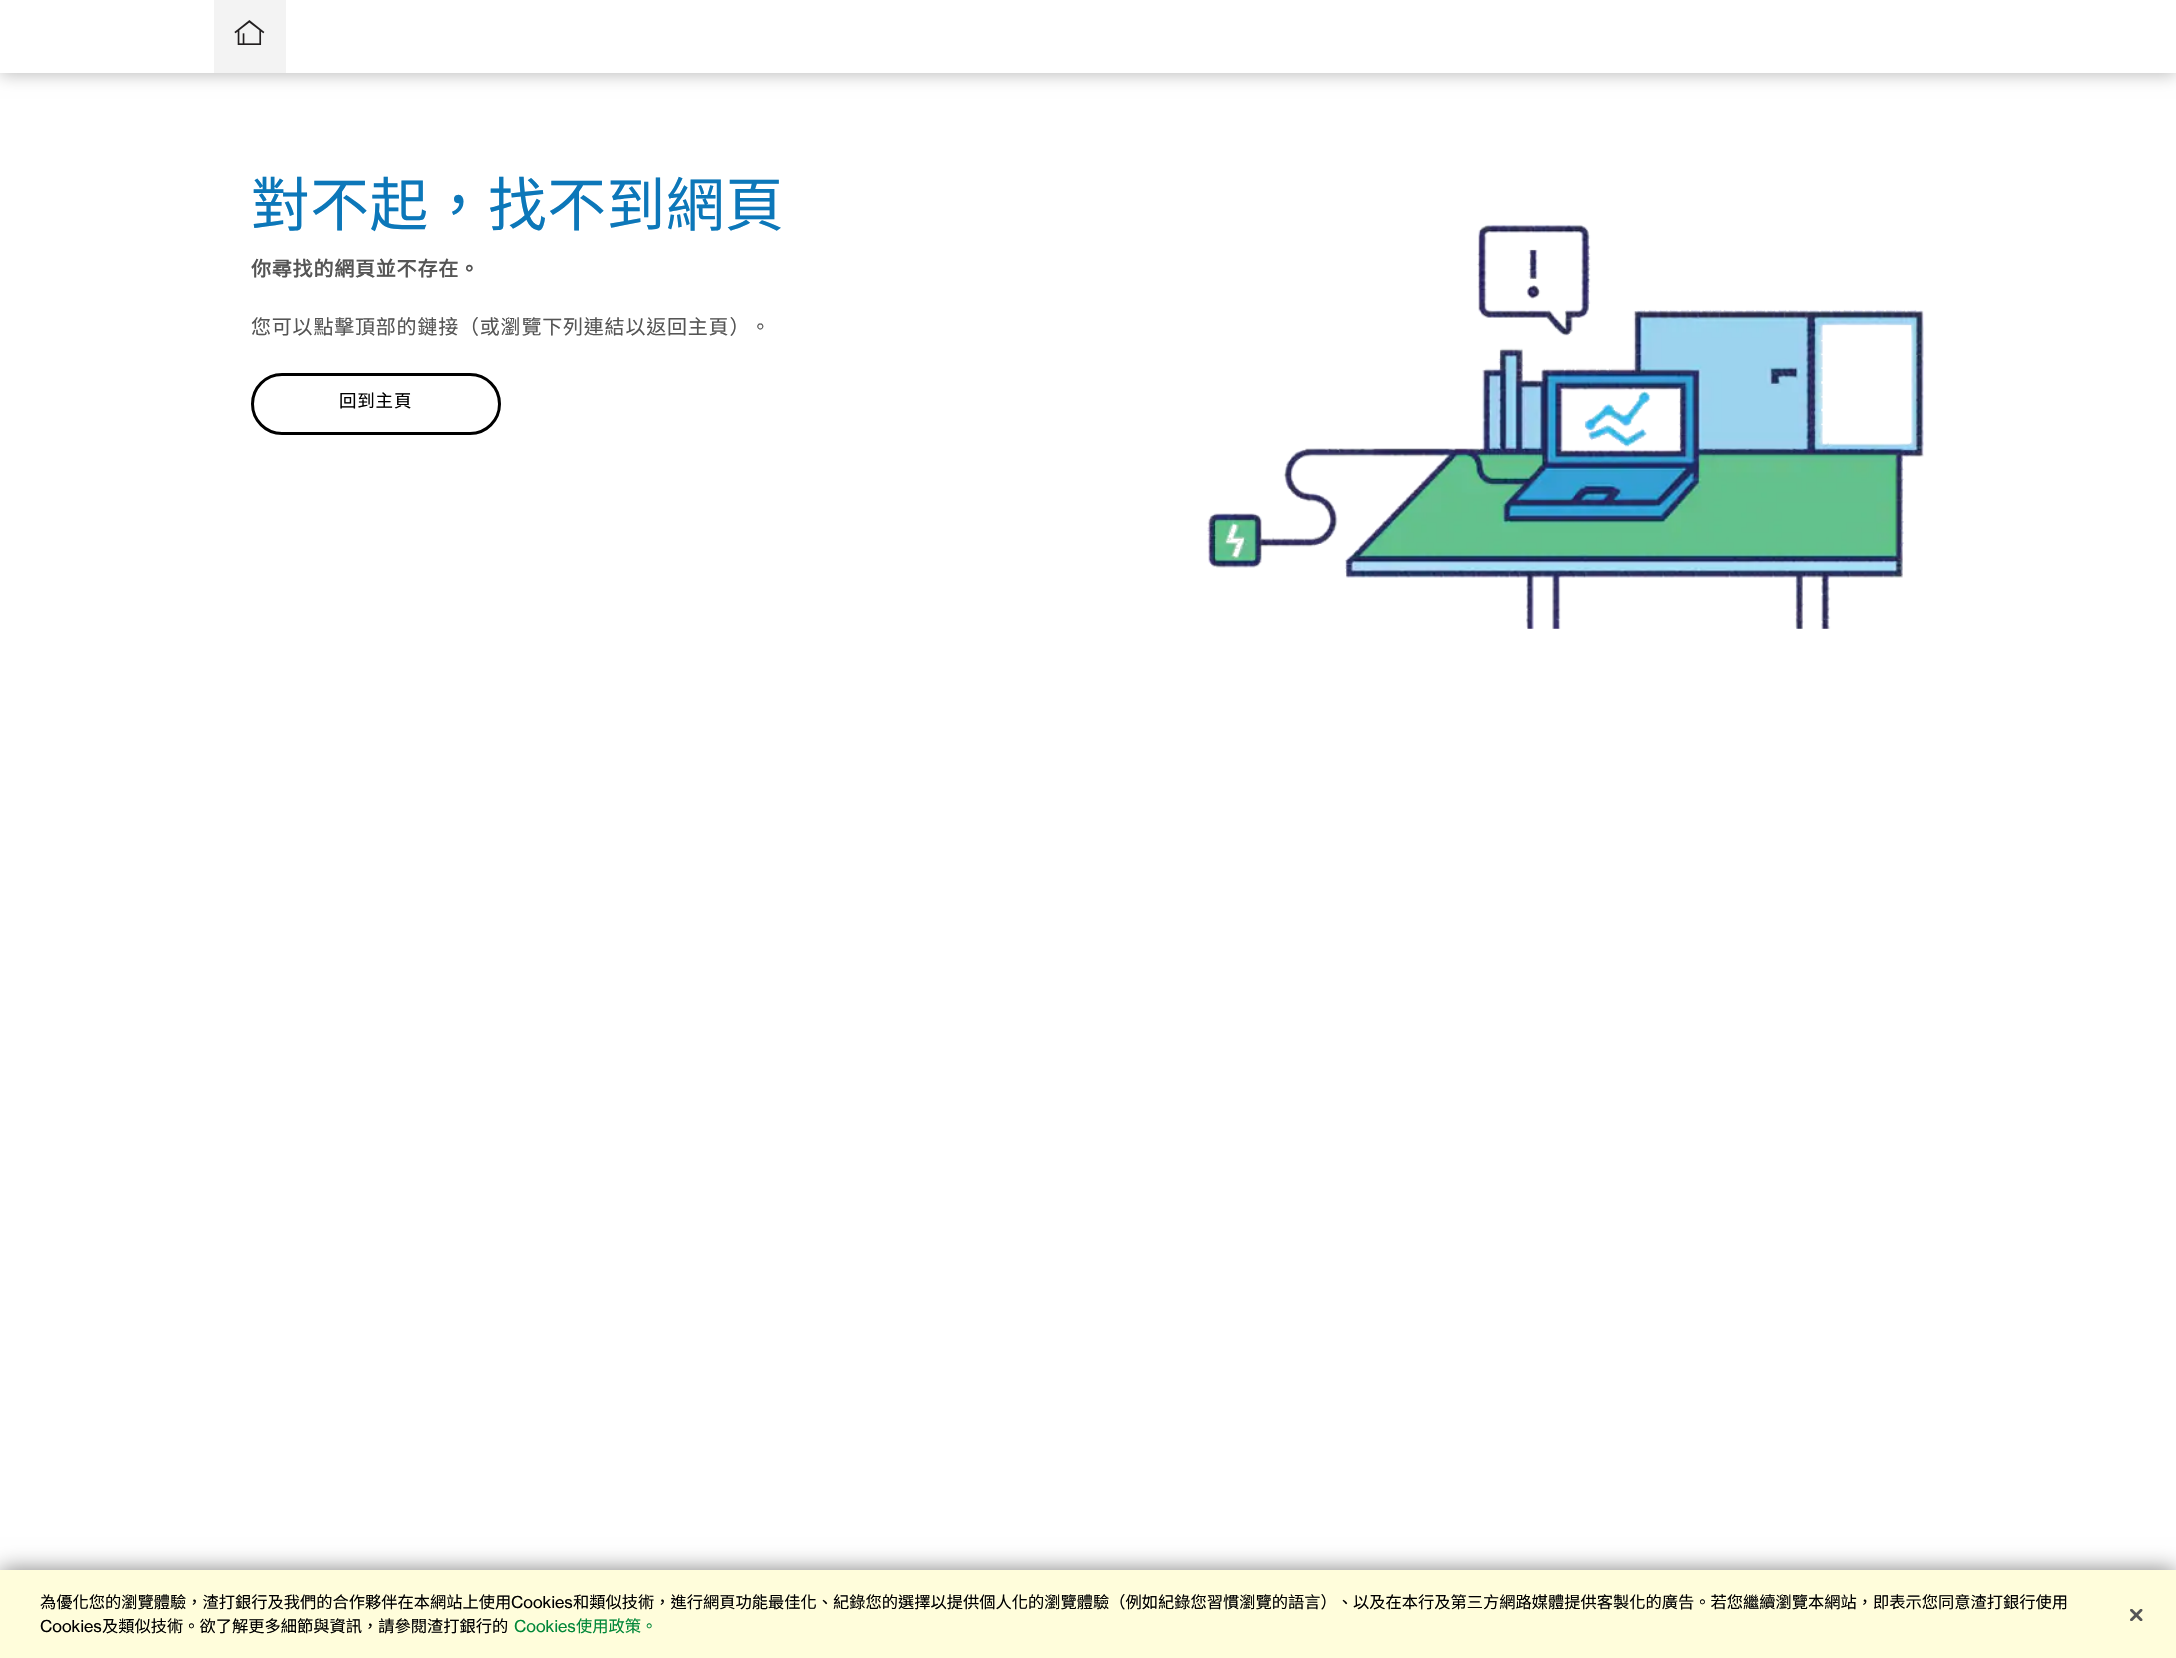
void draw(SkCanvas* canvas) {
    SkPaint paint;
    paint.setAntiAlias(true);
    auto spacedText = [&](const char* s, float x, float y, const SkFont& font, const SkPaint& ink, float letter, float word) {
        std::vector<SkGlyphID> glyphs(font.countText(s, strlen(s), SkTextEncoding::kUTF8));
        std::vector<float> xs(glyphs.size());
        font.textToGlyphs(s, strlen(s), SkTextEncoding::kUTF8, glyphs);
        font.getXPos(glyphs, xs, x);
        float extra = 0;
        for (size_t i = 0; i < glyphs.size(); i++) {
            xs[i] += extra;
            extra += letter + word * (glyphs[i] == font.unicharToGlyph(' '));
        }
        canvas->drawTextBlob(SkTextBlob::MakeFromPosHGlyphs(glyphs, xs, y, font), 0, 0, ink);
    };
    canvas->clear(0xFFFFFFFF);
    paint.setColor(0x40000000);
    paint.setMaskFilter(SkMaskFilter::MakeBlur(kNormal_SkBlurStyle, 8));
    canvas->drawRect(SkRect::MakeXYWH(0, 3, 2176, 72), paint);
    paint.setMaskFilter(nullptr);
    paint.setColor(0xFFFFFFFF);
    canvas->drawRect(SkRect::MakeXYWH(0, 0, 2176, 73), paint);
    paint.setColor(0xFFF3F3F3);
    canvas->drawRect(SkRect::MakeXYWH(214, 0, 72, 73), paint);
    canvas->drawImageRect(SkImages::DeferredFromEncodedData(SkData::MakeFromFileName("img1.png")), SkRect::MakeXYWH(234, 20, 31, 25), SkSamplingOptions());
    SkFont font1(fontMgr->matchFamilyStyle("Noto Sans CJK TC", SkFontStyle::Normal()), 58.75f);
    font1.setSubpixel(true);
    paint.setColor(0xFF0C77B9);
    spacedText("對不起，找不到網頁", 251, 226, font1, paint, 0.5f, 0);
    SkFont font2(fontMgr->matchFamilyStyle("Noto Sans CJK TC", SkFontStyle::Bold()), 20);
    font2.setSubpixel(true);
    paint.setColor(0xFF555555);
    spacedText("你尋找的網頁並不存在。", 251, 276, font2, paint, 0.8f, 0);
    SkFont font3(fontMgr->matchFamilyStyle("Noto Sans CJK TC", SkFontStyle::Normal()), 20);
    font3.setSubpixel(true);
    spacedText("您可以點擊頂部的鏈接（或瀏覽下列連結以返回主頁）。", 251, 334, font3, paint, 0.8f, 0);
    paint.setStyle(SkPaint::kStroke_Style);
    paint.setStrokeWidth(3);
    paint.setColor(0xFF000000);
    canvas->drawRoundRect(SkRect::MakeXYWH(252.5f, 374.5f, 247, 59), 29.5f, 29.5f, paint);
    SkFont font4(fontMgr->matchFamilyStyle("Noto Sans CJK TC", SkFontStyle::Normal()), 17.5f);
    font4.setSubpixel(true);
    paint.setStyle(SkPaint::kFill_Style);
    spacedText("回到主頁", 339, 407, font4, paint, 0.8f, 0);
    canvas->drawImageRect(SkImages::DeferredFromEncodedData(SkData::MakeFromFileName("img2.png")), SkRect::MakeXYWH(1207, 224, 717, 405), SkSamplingOptions());
    paint.setColor(0x80000000);
    paint.setMaskFilter(SkMaskFilter::MakeBlur(kNormal_SkBlurStyle, 11));
    canvas->drawRect(SkRect::MakeXYWH(0, 1570, 2176, 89), paint);
    paint.setMaskFilter(nullptr);
    paint.setColor(0xFFFFFDDB);
    canvas->drawRect(SkRect::MakeXYWH(0, 1570, 2176, 88), paint);
    SkFont font5(fontMgr->matchFamilyStyle("Noto Sans CJK TC", SkFontStyle::Normal()), 16.25f);
    font5.setSubpixel(true);
    paint.setColor(0xFF000000);
    canvas->drawString("為優化您的瀏覽體驗，渣打銀行及我們的合作夥伴在本網站上使用", 40, 1608, font5, paint);
    SkFont font6(fontMgr->matchFamilyStyle("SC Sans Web", SkFontStyle::Normal()), 16.25f);
    font6.setSubpixel(true);
    canvas->drawString("Cookies", 511, 1608, font6, paint);
    canvas->drawString("和類似技術，進行網頁功能最佳化、紀錄您的選擇以提供個人化的瀏覽體驗（例如紀錄您習慣瀏覽的語言）、以及在本行及第三方網路媒體提供客製化的廣告。若您繼續瀏覽本網站，即表示您同意渣打銀行使用", 573, 1608, font5, paint);
    canvas->drawString("Cookies", 40, 1632, font6, paint);
    canvas->drawString("及類似技術。欲了解更多細節與資訊，請參閱渣打銀行的", 102, 1632, font5, paint);
    paint.setColor(0xFF008738);
    canvas->drawString("Cookies", 514, 1632, font6, paint);
    canvas->drawString("使用政策。", 576, 1632, font5, paint);
    canvas->drawImageRect(SkImages::DeferredFromEncodedData(SkData::MakeFromFileName("img3.png")), SkRect::MakeXYWH(2130, 1609, 13, 12), SkSamplingOptions());
}
